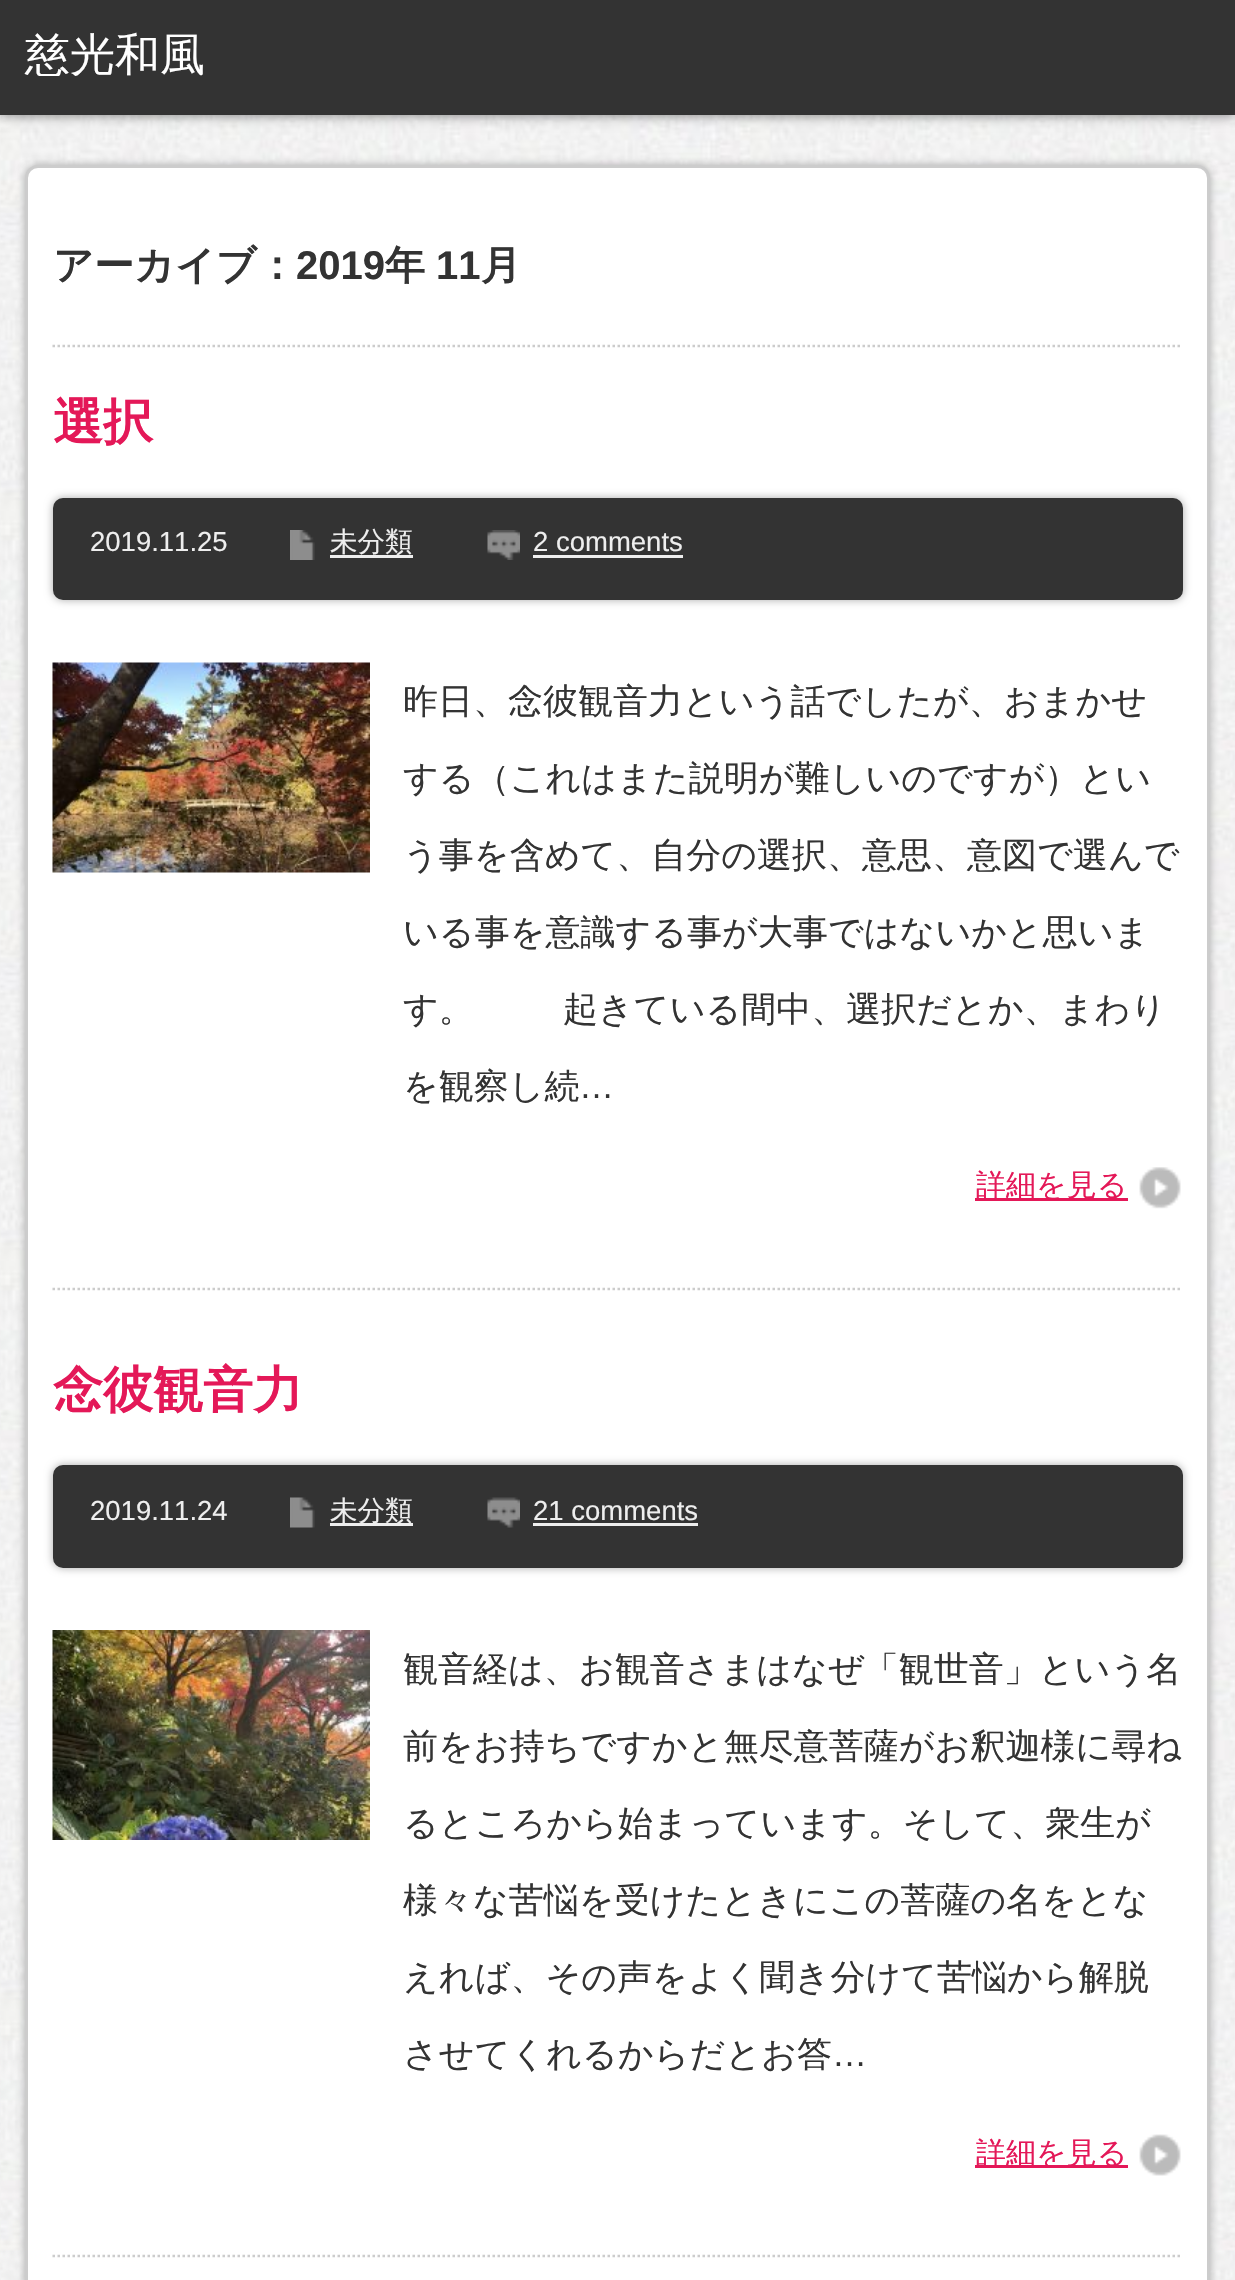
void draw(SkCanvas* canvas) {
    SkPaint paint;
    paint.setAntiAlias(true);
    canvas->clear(0xFFFFFFFF);
    canvas->drawImageRect(SkImages::DeferredFromEncodedData(SkData::MakeFromFileName("img1.png")), SkRect::MakeXYWH(0, 115, 1235, 2165), SkSamplingOptions());
    paint.setColor(0x80000000);
    paint.setMaskFilter(SkMaskFilter::MakeBlur(kNormal_SkBlurStyle, 6));
    canvas->drawRect(SkRect::MakeXYWH(0, 0, 1235, 115), paint);
    paint.setMaskFilter(nullptr);
    paint.setColor(0xFF333333);
    canvas->drawRect(SkRect::MakeXYWH(0, 0, 1235, 115), paint);
    SkFont font1(fontMgr->matchFamilyStyle("WenQuanYi Zen Hei", SkFontStyle(500, SkFontStyle::kNormal_Width, SkFontStyle::kUpright_Slant)), 45);
    font1.setSubpixel(true);
    paint.setColor(0xFFFFFFFF);
    canvas->drawString("慈光和風", 25, 70, font1, paint);
    paint.setColor(0xFFAAAAAA);
    paint.setMaskFilter(SkMaskFilter::MakeBlur(kNormal_SkBlurStyle, 4));
    canvas->drawRoundRect(SkRect::MakeXYWH(25, 165, 1185, 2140), 13, 13, paint);
    paint.setMaskFilter(nullptr);
    paint.setColor(0xFFFFFFFF);
    canvas->drawRoundRect(SkRect::MakeXYWH(26.5f, 166.5f, 1182, 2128), 11.5f, 11.5f, paint);
    paint.setStyle(SkPaint::kStroke_Style);
    paint.setStrokeWidth(3);
    paint.setColor(0xFFCCCCCC);
    canvas->drawRoundRect(SkRect::MakeXYWH(26.5f, 166.5f, 1182, 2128), 11.5f, 11.5f, paint);
    paint.setStrokeWidth(2.5f);
    paint.setPathEffect(SkDashPathEffect::Make({{2.5f, 2.5f}}, 0));
    canvas->drawPath(SkPathBuilder().moveTo(52.5f, 346).lineTo(1182.5f, 346).detach(), paint);
    paint.setPathEffect(nullptr);
    SkFont font2(fontMgr->matchFamilyStyle("WenQuanYi Zen Hei", SkFontStyle::Bold()), 40);
    font2.setSubpixel(true);
    paint.setStyle(SkPaint::kFill_Style);
    paint.setColor(0xFF333333);
    canvas->drawString("アーカイブ：", 53, 279, font2, paint);
    SkFont font3(fontMgr->matchFamilyStyle("Liberation Sans", SkFontStyle::Bold()), 40);
    font3.setSubpixel(true);
    canvas->drawString("2019", 296, 279, font3, paint);
    canvas->drawString("年", 385, 279, font2, paint);
    canvas->drawString("11", 436, 279, font3, paint);
    canvas->drawString("月", 481, 279, font2, paint);
    paint.setStyle(SkPaint::kStroke_Style);
    paint.setColor(0xFFCCCCCC);
    paint.setPathEffect(SkDashPathEffect::Make({{2.5f, 2.5f}}, 0));
    canvas->drawPath(SkPathBuilder().moveTo(52.5f, 1289).lineTo(1182.5f, 1289).detach(), paint);
    paint.setPathEffect(nullptr);
    SkFont font4(fontMgr->matchFamilyStyle("WenQuanYi Zen Hei", SkFontStyle::Bold()), 50);
    font4.setSubpixel(true);
    paint.setStyle(SkPaint::kFill_Style);
    paint.setColor(0xFFE41858);
    canvas->drawString("選択", 53, 439, font4, paint);
    paint.setColor(0xFFAAAAAA);
    paint.setMaskFilter(SkMaskFilter::MakeBlur(kNormal_SkBlurStyle, 4));
    canvas->drawRoundRect(SkRect::MakeXYWH(53, 498, 1130, 102), 10, 10, paint);
    paint.setMaskFilter(nullptr);
    paint.setColor(0xFF333333);
    canvas->drawRoundRect(SkRect::MakeXYWH(53, 498, 1130, 102), 10, 10, paint);
    SkFont font5(fontMgr->matchFamilyStyle("Liberation Sans", SkFontStyle::Normal()), 27.5f);
    font5.setSubpixel(true);
    paint.setColor(0xFFEEEEEE);
    canvas->drawString("2019.11.25", 90, 551, font5, paint);
    canvas->drawImageRect(SkImages::DeferredFromEncodedData(SkData::MakeFromFileName("img2.png")), SkRect::MakeXYWH(290, 530, 25, 30), SkSamplingOptions());
    canvas->drawRect(SkRect::MakeXYWH(330, 555, 83, 3), paint);
    SkFont font6(fontMgr->matchFamilyStyle("WenQuanYi Zen Hei", SkFontStyle(500, SkFontStyle::kNormal_Width, SkFontStyle::kUpright_Slant)), 27.5f);
    font6.setSubpixel(true);
    canvas->drawString("未分類", 330, 551, font6, paint);
    canvas->drawImageRect(SkImages::DeferredFromEncodedData(SkData::MakeFromFileName("img3.png")), SkRect::MakeXYWH(487, 530, 33, 30), SkSamplingOptions());
    canvas->drawString("2 comments", 533, 551, font5, paint);
    canvas->drawRect(SkRect::MakeXYWH(533, 555, 150, 3), paint);
    canvas->drawImageRect(SkImages::DeferredFromEncodedData(SkData::MakeFromFileName("img4.png")), SkRect::MakeXYWH(52, 662, 318, 211), SkSamplingOptions());
    SkFont font7(fontMgr->matchFamilyStyle("WenQuanYi Zen Hei", SkFontStyle(500, SkFontStyle::kNormal_Width, SkFontStyle::kUpright_Slant)), 35);
    font7.setSubpixel(true);
    paint.setColor(0xFF333333);
    canvas->drawString("昨日、念彼観音力という話でしたが、おまかせ", 403, 713, font7, paint);
    canvas->drawString("する（これはまた説明が難しいのですが）とい", 403, 790, font7, paint);
    canvas->drawString("う事を含めて、自分の選択、意思、意図で選んで", 403, 867, font7, paint);
    canvas->drawString("いる事を意識する事が大事ではないかと思いま", 403, 944, font7, paint);
    canvas->drawString("す。", 403, 1021, font7, paint);
    canvas->drawString("起きている間中、選択だとか、まわり", 563, 1021, font7, paint);
    canvas->drawString("を観察し続", 403, 1098, font7, paint);
    SkFont font8(fontMgr->matchFamilyStyle("Liberation Sans", SkFontStyle::Normal()), 35);
    font8.setSubpixel(true);
    canvas->drawString("…", 579, 1098, font8, paint);
    canvas->drawImageRect(SkImages::DeferredFromEncodedData(SkData::MakeFromFileName("img5.png")), SkRect::MakeXYWH(1139, 1167, 42, 42), SkSamplingOptions());
    paint.setColor(0xFFE41858);
    canvas->drawRect(SkRect::MakeXYWH(975, 1198, 153, 3), paint);
    SkFont font9(fontMgr->matchFamilyStyle("WenQuanYi Zen Hei", SkFontStyle(500, SkFontStyle::kNormal_Width, SkFontStyle::kUpright_Slant)), 30);
    font9.setSubpixel(true);
    canvas->drawString("詳細を見る", 976, 1195, font9, paint);
    paint.setStyle(SkPaint::kStroke_Style);
    paint.setColor(0xFFCCCCCC);
    paint.setPathEffect(SkDashPathEffect::Make({{2.5f, 2.5f}}, 0));
    canvas->drawPath(SkPathBuilder().moveTo(52.5f, 2256).lineTo(1182.5f, 2256).detach(), paint);
    paint.setPathEffect(nullptr);
    paint.setStyle(SkPaint::kFill_Style);
    paint.setColor(0xFFE41858);
    canvas->drawString("念彼観音力", 53, 1407, font4, paint);
    paint.setColor(0xFFAAAAAA);
    paint.setMaskFilter(SkMaskFilter::MakeBlur(kNormal_SkBlurStyle, 4));
    canvas->drawRoundRect(SkRect::MakeXYWH(53, 1465, 1130, 103), 10, 10, paint);
    paint.setMaskFilter(nullptr);
    paint.setColor(0xFF333333);
    canvas->drawRoundRect(SkRect::MakeXYWH(53, 1465, 1130, 103), 10, 10, paint);
    paint.setColor(0xFFEEEEEE);
    canvas->drawString("2019.11.24", 90, 1520, font5, paint);
    canvas->drawImageRect(SkImages::DeferredFromEncodedData(SkData::MakeFromFileName("img6.png")), SkRect::MakeXYWH(290, 1497, 25, 31), SkSamplingOptions());
    canvas->drawRect(SkRect::MakeXYWH(330, 1523, 83, 3), paint);
    canvas->drawString("未分類", 330, 1520, font6, paint);
    canvas->drawImageRect(SkImages::DeferredFromEncodedData(SkData::MakeFromFileName("img7.png")), SkRect::MakeXYWH(487, 1497, 33, 31), SkSamplingOptions());
    canvas->drawString("21 comments", 533, 1520, font5, paint);
    canvas->drawRect(SkRect::MakeXYWH(533, 1523, 165, 3), paint);
    canvas->drawImageRect(SkImages::DeferredFromEncodedData(SkData::MakeFromFileName("img8.png")), SkRect::MakeXYWH(52, 1630, 318, 210), SkSamplingOptions());
    paint.setColor(0xFF333333);
    canvas->drawString("観音経は、お観音さまはなぜ「観世音」という名", 403, 1681, font7, paint);
    canvas->drawString("前をお持ちですかと無尽意菩薩がお釈迦様に尋ね", 403, 1758, font7, paint);
    canvas->drawString("るところから始まっています。そして、衆生が", 403, 1835, font7, paint);
    canvas->drawString("様々な苦悩を受けたときにこの菩薩の名をとな", 403, 1912, font7, paint);
    canvas->drawString("えれば、その声をよく聞き分けて苦悩から解脱", 403, 1989, font7, paint);
    canvas->drawString("させてくれるからだとお答", 403, 2066, font7, paint);
    canvas->drawString("…", 832, 2066, font8, paint);
    canvas->drawImageRect(SkImages::DeferredFromEncodedData(SkData::MakeFromFileName("img9.png")), SkRect::MakeXYWH(1139, 2134, 42, 42), SkSamplingOptions());
    paint.setColor(0xFFE41858);
    canvas->drawRect(SkRect::MakeXYWH(975, 2165, 153, 3), paint);
    canvas->drawString("詳細を見る", 976, 2163, font9, paint);
}
